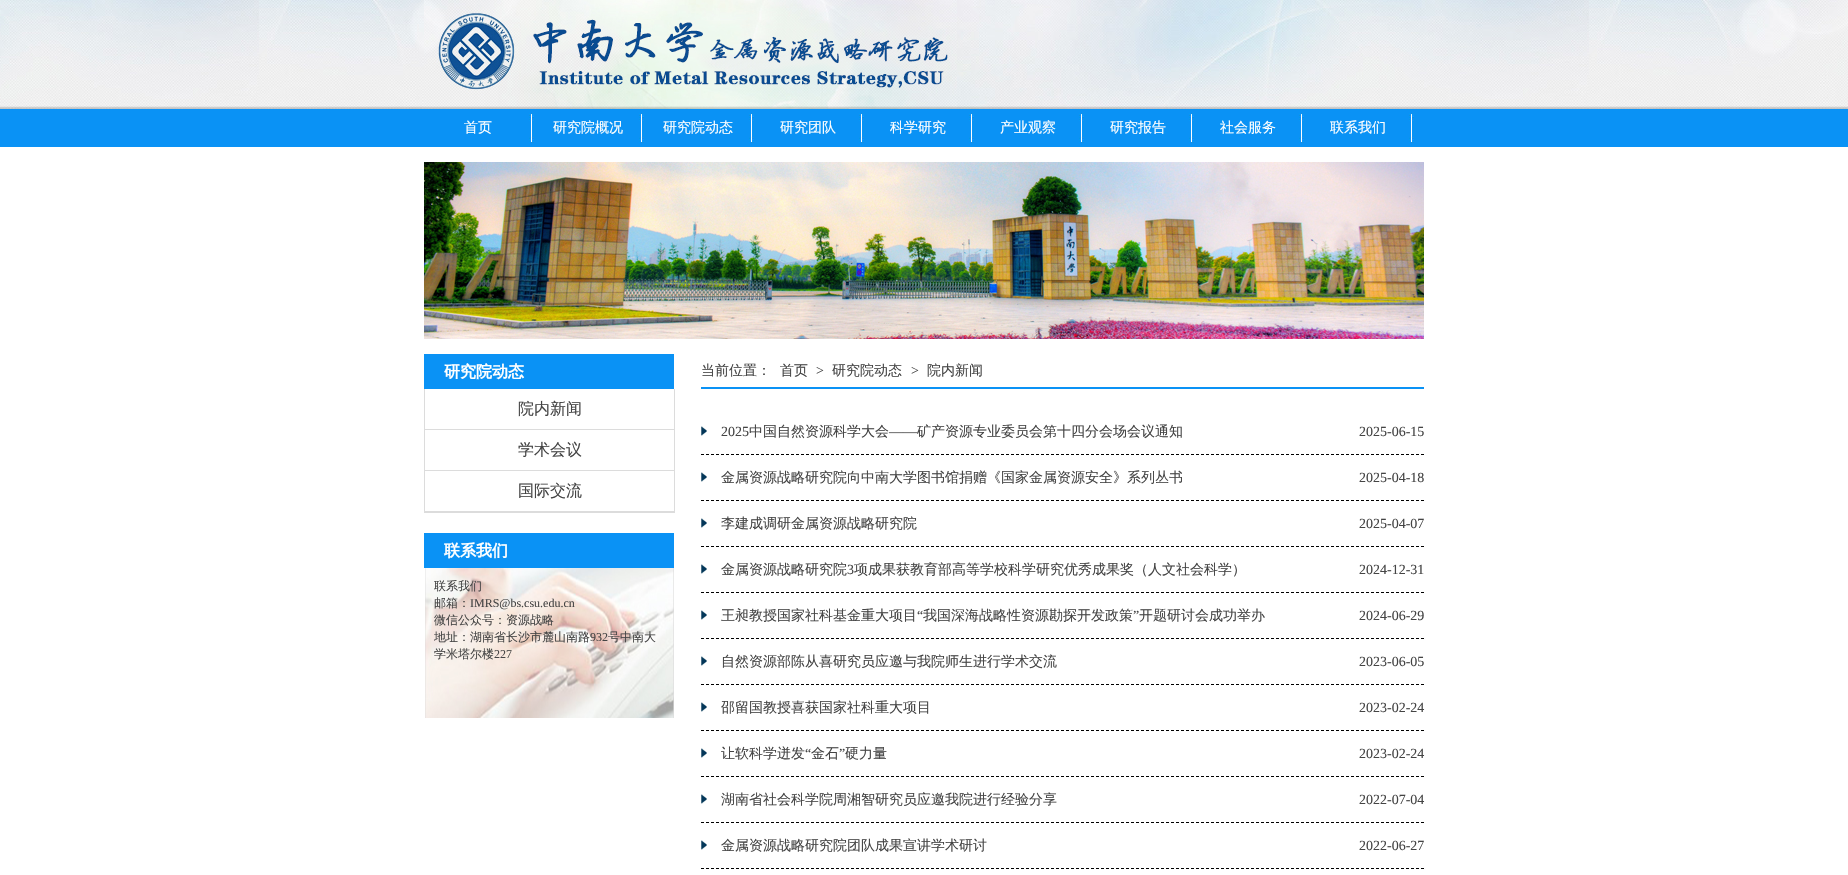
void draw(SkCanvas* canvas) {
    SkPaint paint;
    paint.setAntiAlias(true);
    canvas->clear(0xFFFFFFFF);
    canvas->drawImageRect(SkImages::DeferredFromEncodedData(SkData::MakeFromFileName("img1.png")), SkRect::MakeXYWH(0, 0, 1848, 109), SkSamplingOptions());
    canvas->drawImageRect(SkImages::DeferredFromEncodedData(SkData::MakeFromFileName("img2.png")), SkRect::MakeXYWH(424, 0, 533, 108), SkSamplingOptions());
    paint.setColor(0xFF0A92F5);
    canvas->drawRect(SkRect::MakeXYWH(0, 109, 1848, 38), paint);
    canvas->drawImageRect(SkImages::DeferredFromEncodedData(SkData::MakeFromFileName("img3.png")), SkRect::MakeXYWH(529, 113, 5, 30), SkSamplingOptions());
    SkFont font1(fontMgr->matchFamilyStyle("WenQuanYi Zen Hei", SkFontStyle(500, SkFontStyle::kNormal_Width, SkFontStyle::kUpright_Slant)), 14);
    font1.setSubpixel(true);
    paint.setColor(0xFFFFFFFF);
    canvas->drawString("首页", 464, 132, font1, paint);
    canvas->drawImageRect(SkImages::DeferredFromEncodedData(SkData::MakeFromFileName("img3.png")), SkRect::MakeXYWH(639, 113, 5, 30), SkSamplingOptions());
    canvas->drawString("研究院概况", 553, 132, font1, paint);
    canvas->drawImageRect(SkImages::DeferredFromEncodedData(SkData::MakeFromFileName("img3.png")), SkRect::MakeXYWH(749, 113, 5, 30), SkSamplingOptions());
    canvas->drawString("研究院动态", 663, 132, font1, paint);
    canvas->drawImageRect(SkImages::DeferredFromEncodedData(SkData::MakeFromFileName("img3.png")), SkRect::MakeXYWH(859, 113, 5, 30), SkSamplingOptions());
    canvas->drawString("研究团队", 780, 132, font1, paint);
    canvas->drawImageRect(SkImages::DeferredFromEncodedData(SkData::MakeFromFileName("img3.png")), SkRect::MakeXYWH(969, 113, 5, 30), SkSamplingOptions());
    canvas->drawString("科学研究", 890, 132, font1, paint);
    canvas->drawImageRect(SkImages::DeferredFromEncodedData(SkData::MakeFromFileName("img3.png")), SkRect::MakeXYWH(1079, 113, 5, 30), SkSamplingOptions());
    canvas->drawString("产业观察", 1000, 132, font1, paint);
    canvas->drawImageRect(SkImages::DeferredFromEncodedData(SkData::MakeFromFileName("img3.png")), SkRect::MakeXYWH(1189, 113, 5, 30), SkSamplingOptions());
    canvas->drawString("研究报告", 1110, 132, font1, paint);
    canvas->drawImageRect(SkImages::DeferredFromEncodedData(SkData::MakeFromFileName("img3.png")), SkRect::MakeXYWH(1299, 113, 5, 30), SkSamplingOptions());
    canvas->drawString("社会服务", 1220, 132, font1, paint);
    canvas->drawImageRect(SkImages::DeferredFromEncodedData(SkData::MakeFromFileName("img3.png")), SkRect::MakeXYWH(1409, 113, 5, 30), SkSamplingOptions());
    canvas->drawString("联系我们", 1330, 132, font1, paint);
    canvas->drawImageRect(SkImages::DeferredFromEncodedData(SkData::MakeFromFileName("img4.png")), SkRect::MakeXYWH(424, 162, 1000, 177), SkSamplingOptions());
    paint.setColor(0xFF0A92F5);
    canvas->drawRect(SkRect::MakeXYWH(424, 354, 250, 35), paint);
    SkFont font2(fontMgr->matchFamilyStyle("WenQuanYi Zen Hei", SkFontStyle::Bold()), 16);
    font2.setSubpixel(true);
    paint.setColor(0xFFFFFFFF);
    canvas->drawString("研究院动态", 444, 377, font2, paint);
    paint.setColor(0xFFDCDCDC);
    canvas->drawRect(SkRect::MakeXYWH(674, 389, 1, 124), paint);
    canvas->drawRect(SkRect::MakeXYWH(424, 512, 251, 1), paint);
    canvas->drawRect(SkRect::MakeXYWH(424, 389, 1, 124), paint);
    canvas->drawRect(SkRect::MakeXYWH(425, 429, 249, 1), paint);
    SkFont font3(fontMgr->matchFamilyStyle("WenQuanYi Zen Hei", SkFontStyle(500, SkFontStyle::kNormal_Width, SkFontStyle::kUpright_Slant)), 16);
    font3.setSubpixel(true);
    paint.setColor(0xFF444444);
    canvas->drawString("院内新闻", 518, 414, font3, paint);
    paint.setColor(0xFFDCDCDC);
    canvas->drawRect(SkRect::MakeXYWH(425, 470, 249, 1), paint);
    paint.setColor(0xFF444444);
    canvas->drawString("学术会议", 518, 455, font3, paint);
    paint.setColor(0xFFDCDCDC);
    canvas->drawRect(SkRect::MakeXYWH(425, 511, 249, 1), paint);
    paint.setColor(0xFF444444);
    canvas->drawString("国际交流", 518, 496, font3, paint);
    paint.setColor(0xFF0A92F5);
    canvas->drawRect(SkRect::MakeXYWH(424, 533, 250, 35), paint);
    paint.setColor(0xFFFFFFFF);
    canvas->drawString("联系我们", 444, 556, font2, paint);
    canvas->drawImageRect(SkImages::DeferredFromEncodedData(SkData::MakeFromFileName("img5.png")), SkRect::MakeXYWH(425, 568, 249, 150), SkSamplingOptions());
    SkFont font4(fontMgr->matchFamilyStyle("WenQuanYi Zen Hei", SkFontStyle(500, SkFontStyle::kNormal_Width, SkFontStyle::kUpright_Slant)), 12);
    font4.setSubpixel(true);
    paint.setColor(0xFF444444);
    canvas->drawString("联系我们", 434, 590, font4, paint);
    canvas->drawString("邮箱：", 434, 607, font4, paint);
    SkFont font5(fontMgr->matchFamilyStyle("Liberation Serif", SkFontStyle::Normal()), 12);
    font5.setSubpixel(true);
    canvas->drawString("IMRS@bs.csu.edu.cn", 470, 607, font5, paint);
    canvas->drawString("微信公众号：资源战略", 434, 624, font4, paint);
    canvas->drawString("地址：湖南省长沙市麓山南路", 434, 641, font4, paint);
    canvas->drawString("932", 590, 641, font5, paint);
    canvas->drawString("号中南大", 608, 641, font4, paint);
    canvas->drawString("学米塔尔楼", 434, 658, font4, paint);
    canvas->drawString("227", 494, 658, font5, paint);
    paint.setColor(0xFF0A92F5);
    canvas->drawRect(SkRect::MakeXYWH(701, 387, 723, 2), paint);
    paint.setColor(0xFF444444);
    canvas->drawString("当前位置：", 701, 375, font1, paint);
    canvas->drawString("首页", 780, 375, font1, paint);
    SkFont font6(fontMgr->matchFamilyStyle("Liberation Serif", SkFontStyle::Normal()), 14);
    font6.setSubpixel(true);
    canvas->drawString(">", 816, 375, font6, paint);
    canvas->drawString("研究院动态", 832, 375, font1, paint);
    canvas->drawString(">", 911, 375, font6, paint);
    canvas->drawString("院内新闻", 927, 375, font1, paint);
    canvas->drawImageRect(SkImages::DeferredFromEncodedData(SkData::MakeFromFileName("img6.png")), SkRect::MakeXYWH(701, 426, 6, 10), SkSamplingOptions());
    paint.setStyle(SkPaint::kStroke_Style);
    paint.setStrokeWidth(1);
    paint.setColor(0xFF000000);
    paint.setPathEffect(SkDashPathEffect::Make({{3, 2}}, 0));
    canvas->drawPath(SkPathBuilder().moveTo(701, 454.5f).lineTo(1424, 454.5f).detach(), paint);
    paint.setPathEffect(nullptr);
    paint.setStyle(SkPaint::kFill_Style);
    paint.setColor(0xFF444444);
    canvas->drawString("2025", 721, 436, font6, paint);
    canvas->drawString("中国自然资源科学大会", 749, 436, font1, paint);
    canvas->drawString("——", 889, 436, font6, paint);
    canvas->drawString("矿产资源专业委员会第十四分会场会议通知", 917, 436, font1, paint);
    canvas->drawString("2025-06-15", 1359, 436, font6, paint);
    canvas->drawImageRect(SkImages::DeferredFromEncodedData(SkData::MakeFromFileName("img6.png")), SkRect::MakeXYWH(701, 472, 6, 10), SkSamplingOptions());
    paint.setStyle(SkPaint::kStroke_Style);
    paint.setColor(0xFF000000);
    paint.setPathEffect(SkDashPathEffect::Make({{3, 2}}, 0));
    canvas->drawPath(SkPathBuilder().moveTo(701, 500.5f).lineTo(1424, 500.5f).detach(), paint);
    paint.setPathEffect(nullptr);
    paint.setStyle(SkPaint::kFill_Style);
    paint.setColor(0xFF444444);
    canvas->drawString("金属资源战略研究院向中南大学图书馆捐赠《国家金属资源安全》系列丛书", 721, 482, font1, paint);
    canvas->drawString("2025-04-18", 1359, 482, font6, paint);
    canvas->drawImageRect(SkImages::DeferredFromEncodedData(SkData::MakeFromFileName("img6.png")), SkRect::MakeXYWH(701, 518, 6, 10), SkSamplingOptions());
    paint.setStyle(SkPaint::kStroke_Style);
    paint.setColor(0xFF000000);
    paint.setPathEffect(SkDashPathEffect::Make({{3, 2}}, 0));
    canvas->drawPath(SkPathBuilder().moveTo(701, 546.5f).lineTo(1424, 546.5f).detach(), paint);
    paint.setPathEffect(nullptr);
    paint.setStyle(SkPaint::kFill_Style);
    paint.setColor(0xFF444444);
    canvas->drawString("李建成调研金属资源战略研究院", 721, 528, font1, paint);
    canvas->drawString("2025-04-07", 1359, 528, font6, paint);
    canvas->drawImageRect(SkImages::DeferredFromEncodedData(SkData::MakeFromFileName("img6.png")), SkRect::MakeXYWH(701, 564, 6, 10), SkSamplingOptions());
    paint.setStyle(SkPaint::kStroke_Style);
    paint.setColor(0xFF000000);
    paint.setPathEffect(SkDashPathEffect::Make({{3, 2}}, 0));
    canvas->drawPath(SkPathBuilder().moveTo(701, 592.5f).lineTo(1424, 592.5f).detach(), paint);
    paint.setPathEffect(nullptr);
    paint.setStyle(SkPaint::kFill_Style);
    paint.setColor(0xFF444444);
    canvas->drawString("金属资源战略研究院", 721, 574, font1, paint);
    canvas->drawString("3", 847, 574, font6, paint);
    canvas->drawString("项成果获教育部高等学校科学研究优秀成果奖（人文社会科学）", 854, 574, font1, paint);
    canvas->drawString("2024-12-31", 1359, 574, font6, paint);
    canvas->drawImageRect(SkImages::DeferredFromEncodedData(SkData::MakeFromFileName("img6.png")), SkRect::MakeXYWH(701, 610, 6, 10), SkSamplingOptions());
    paint.setStyle(SkPaint::kStroke_Style);
    paint.setColor(0xFF000000);
    paint.setPathEffect(SkDashPathEffect::Make({{3, 2}}, 0));
    canvas->drawPath(SkPathBuilder().moveTo(701, 638.5f).lineTo(1424, 638.5f).detach(), paint);
    paint.setPathEffect(nullptr);
    paint.setStyle(SkPaint::kFill_Style);
    paint.setColor(0xFF444444);
    canvas->drawString("王昶教授国家社科基金重大项目", 721, 620, font1, paint);
    canvas->drawString("“", 917, 620, font6, paint);
    canvas->drawString("我国深海战略性资源勘探开发政策", 923, 620, font1, paint);
    canvas->drawString("”", 1133, 620, font6, paint);
    canvas->drawString("开题研讨会成功举办", 1139, 620, font1, paint);
    canvas->drawString("2024-06-29", 1359, 620, font6, paint);
    canvas->drawImageRect(SkImages::DeferredFromEncodedData(SkData::MakeFromFileName("img6.png")), SkRect::MakeXYWH(701, 656, 6, 10), SkSamplingOptions());
    paint.setStyle(SkPaint::kStroke_Style);
    paint.setColor(0xFF000000);
    paint.setPathEffect(SkDashPathEffect::Make({{3, 2}}, 0));
    canvas->drawPath(SkPathBuilder().moveTo(701, 684.5f).lineTo(1424, 684.5f).detach(), paint);
    paint.setPathEffect(nullptr);
    paint.setStyle(SkPaint::kFill_Style);
    paint.setColor(0xFF444444);
    canvas->drawString("自然资源部陈从喜研究员应邀与我院师生进行学术交流", 721, 666, font1, paint);
    canvas->drawString("2023-06-05", 1359, 666, font6, paint);
    canvas->drawImageRect(SkImages::DeferredFromEncodedData(SkData::MakeFromFileName("img6.png")), SkRect::MakeXYWH(701, 702, 6, 10), SkSamplingOptions());
    paint.setStyle(SkPaint::kStroke_Style);
    paint.setColor(0xFF000000);
    paint.setPathEffect(SkDashPathEffect::Make({{3, 2}}, 0));
    canvas->drawPath(SkPathBuilder().moveTo(701, 730.5f).lineTo(1424, 730.5f).detach(), paint);
    paint.setPathEffect(nullptr);
    paint.setStyle(SkPaint::kFill_Style);
    paint.setColor(0xFF444444);
    canvas->drawString("邵留国教授喜获国家社科重大项目", 721, 712, font1, paint);
    canvas->drawString("2023-02-24", 1359, 712, font6, paint);
    canvas->drawImageRect(SkImages::DeferredFromEncodedData(SkData::MakeFromFileName("img6.png")), SkRect::MakeXYWH(701, 748, 6, 10), SkSamplingOptions());
    paint.setStyle(SkPaint::kStroke_Style);
    paint.setColor(0xFF000000);
    paint.setPathEffect(SkDashPathEffect::Make({{3, 2}}, 0));
    canvas->drawPath(SkPathBuilder().moveTo(701, 776.5f).lineTo(1424, 776.5f).detach(), paint);
    paint.setPathEffect(nullptr);
    paint.setStyle(SkPaint::kFill_Style);
    paint.setColor(0xFF444444);
    canvas->drawString("让软科学迸发", 721, 758, font1, paint);
    canvas->drawString("“", 805, 758, font6, paint);
    canvas->drawString("金石", 811, 758, font1, paint);
    canvas->drawString("”", 839, 758, font6, paint);
    canvas->drawString("硬力量", 845, 758, font1, paint);
    canvas->drawString("2023-02-24", 1359, 758, font6, paint);
    canvas->drawImageRect(SkImages::DeferredFromEncodedData(SkData::MakeFromFileName("img6.png")), SkRect::MakeXYWH(701, 794, 6, 10), SkSamplingOptions());
    paint.setStyle(SkPaint::kStroke_Style);
    paint.setColor(0xFF000000);
    paint.setPathEffect(SkDashPathEffect::Make({{3, 2}}, 0));
    canvas->drawPath(SkPathBuilder().moveTo(701, 822.5f).lineTo(1424, 822.5f).detach(), paint);
    paint.setPathEffect(nullptr);
    paint.setStyle(SkPaint::kFill_Style);
    paint.setColor(0xFF444444);
    canvas->drawString("湖南省社会科学院周湘智研究员应邀我院进行经验分享", 721, 804, font1, paint);
    canvas->drawString("2022-07-04", 1359, 804, font6, paint);
    canvas->drawImageRect(SkImages::DeferredFromEncodedData(SkData::MakeFromFileName("img6.png")), SkRect::MakeXYWH(701, 840, 6, 10), SkSamplingOptions());
    paint.setStyle(SkPaint::kStroke_Style);
    paint.setColor(0xFF000000);
    paint.setPathEffect(SkDashPathEffect::Make({{3, 2}}, 0));
    canvas->drawPath(SkPathBuilder().moveTo(701, 868.5f).lineTo(1424, 868.5f).detach(), paint);
    paint.setPathEffect(nullptr);
    paint.setStyle(SkPaint::kFill_Style);
    paint.setColor(0xFF444444);
    canvas->drawString("金属资源战略研究院团队成果宣讲学术研讨", 721, 850, font1, paint);
    canvas->drawString("2022-06-27", 1359, 850, font6, paint);
}
